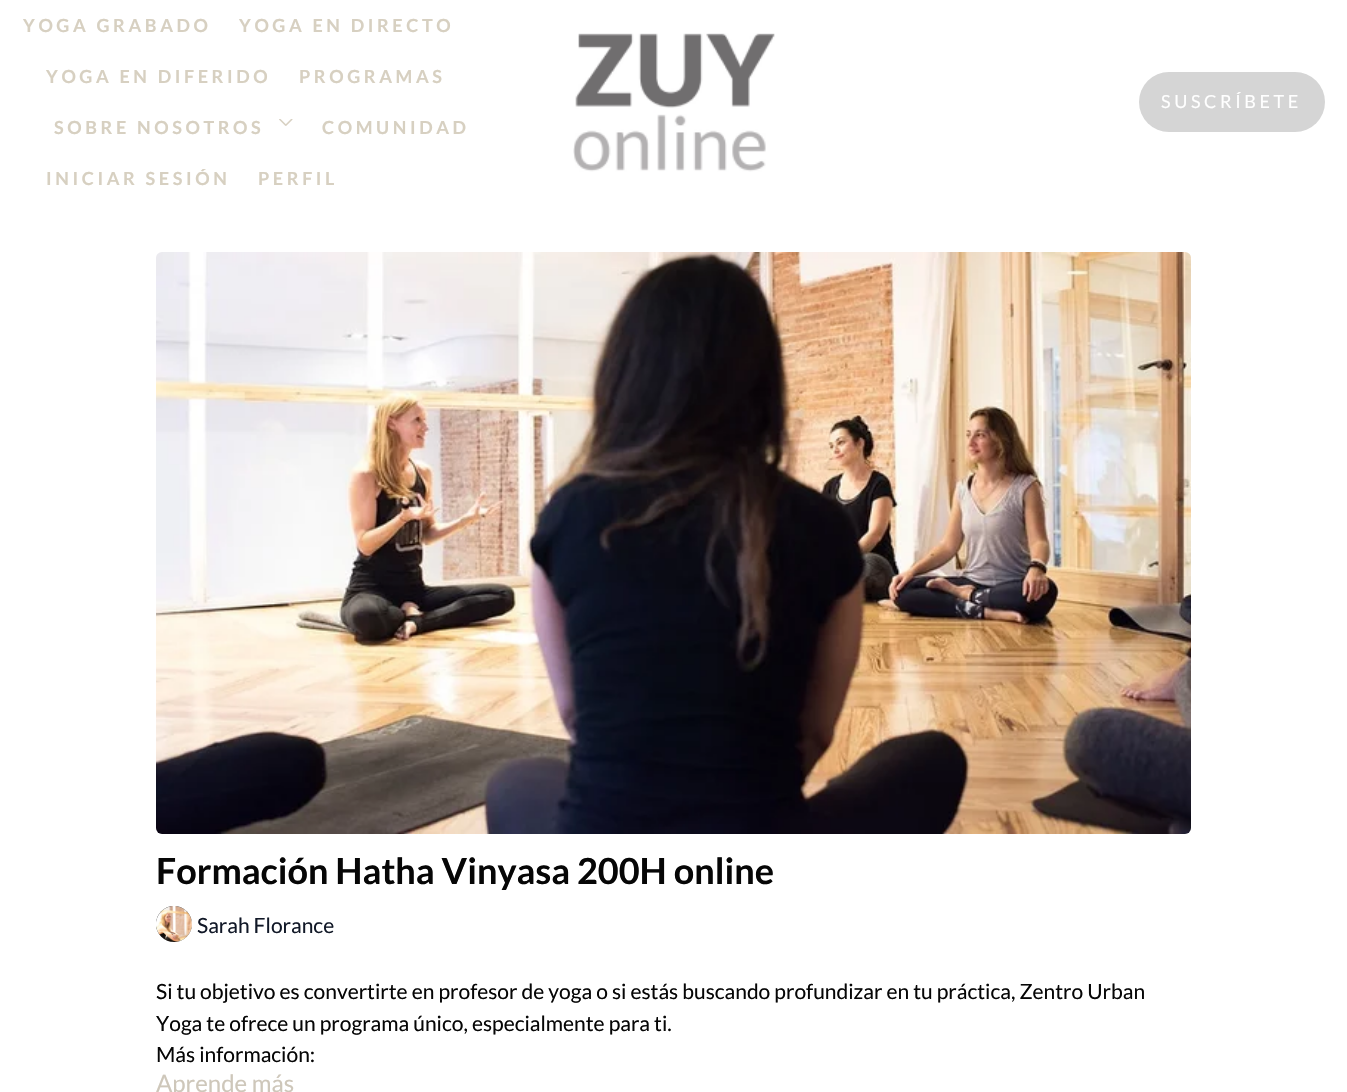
void draw(SkCanvas* canvas) {
    SkPaint paint;
    paint.setAntiAlias(true);
    auto spacedText = [&](const char* s, float x, float y, const SkFont& font, const SkPaint& ink, float letter, float word) {
        std::vector<SkGlyphID> glyphs(font.countText(s, strlen(s), SkTextEncoding::kUTF8));
        std::vector<float> xs(glyphs.size());
        font.textToGlyphs(s, strlen(s), SkTextEncoding::kUTF8, glyphs);
        font.getXPos(glyphs, xs, x);
        float extra = 0;
        for (size_t i = 0; i < glyphs.size(); i++) {
            xs[i] += extra;
            extra += letter + word * (glyphs[i] == font.unicharToGlyph(' '));
        }
        canvas->drawTextBlob(SkTextBlob::MakeFromPosHGlyphs(glyphs, xs, y, font), 0, 0, ink);
    };
    canvas->clear(0xFFFFFFFF);
    SkFont font1(fontMgr->matchFamilyStyle("Lato", SkFontStyle::Bold()), 18);
    font1.setSubpixel(true);
    paint.setColor(0xFFD7D0C1);
    spacedText("YOGA GRABADO", 23, 32, font1, paint, 3.6f, 0);
    spacedText("YOGA EN DIRECTO", 239, 32, font1, paint, 3.6f, 0);
    spacedText("YOGA EN DIFERIDO", 46, 83, font1, paint, 3.6f, 0);
    spacedText("PROGRAMAS", 299, 83, font1, paint, 3.6f, 0);
    spacedText("SOBRE NOSOTROS", 54, 134, font1, paint, 3.6f, 0);
    canvas->drawImageRect(SkImages::DeferredFromEncodedData(SkData::MakeFromFileName("img1.png")), SkRect::MakeXYWH(279, 119, 14, 7), SkSamplingOptions());
    spacedText("COMUNIDAD", 322, 134, font1, paint, 3.6f, 0);
    spacedText("INICIAR SESIÓN", 46, 185, font1, paint, 3.6f, 0);
    spacedText("PERFIL", 258, 185, font1, paint, 3.6f, 0);
    canvas->drawImageRect(SkImages::DeferredFromEncodedData(SkData::MakeFromFileName("img2.png")), SkRect::MakeXYWH(573, 33, 202, 139), SkSamplingOptions());
    paint.setColor(0xFFD5D5D5);
    canvas->drawRoundRect(SkRect::MakeXYWH(1139, 72, 186, 60), 30, 30, paint);
    SkFont font2(fontMgr->matchFamilyStyle("Lato", SkFontStyle::Normal()), 18);
    font2.setSubpixel(true);
    paint.setColor(0xFFFFFFFF);
    spacedText("SUSCRÍBETE", 1161, 108, font2, paint, 3.6f, 0);
    canvas->drawImageRect(SkImages::DeferredFromEncodedData(SkData::MakeFromFileName("img3.png")), SkRect::MakeXYWH(156, 252, 1035, 582), SkSamplingOptions());
    SkFont font3(fontMgr->matchFamilyStyle("Lato", SkFontStyle::Bold()), 36);
    font3.setSubpixel(true);
    paint.setColor(0xFF060606);
    canvas->drawString("Formación Hatha Vinyasa 200H online", 156, 884, font3, paint);
    canvas->drawImageRect(SkImages::DeferredFromEncodedData(SkData::MakeFromFileName("img4.png")), SkRect::MakeXYWH(156, 906, 36, 36), SkSamplingOptions());
    SkFont font4(fontMgr->matchFamilyStyle("Lato", SkFontStyle::Normal()), 21);
    font4.setSubpixel(true);
    paint.setColor(0xFF111827);
    canvas->drawString("Sarah Florance", 197, 933, font4, paint);
    paint.setColor(0xFF060606);
    canvas->drawString("Si tu objetivo es convertirte en profesor de yoga o si estás buscando profundizar en tu práctica, Zentro Urban", 156, 999, font4, paint);
    canvas->drawString("Yoga te ofrece un programa único, especialmente para ti.", 156, 1031, font4, paint);
    canvas->drawString("Más información:", 156, 1062, font4, paint);
    SkFont font5(fontMgr->matchFamilyStyle("Lato", SkFontStyle::Normal()), 24);
    font5.setSubpixel(true);
    paint.setColor(0xFFCEC7BA);
    canvas->drawString("Aprende más", 156, 1092, font5, paint);
}
